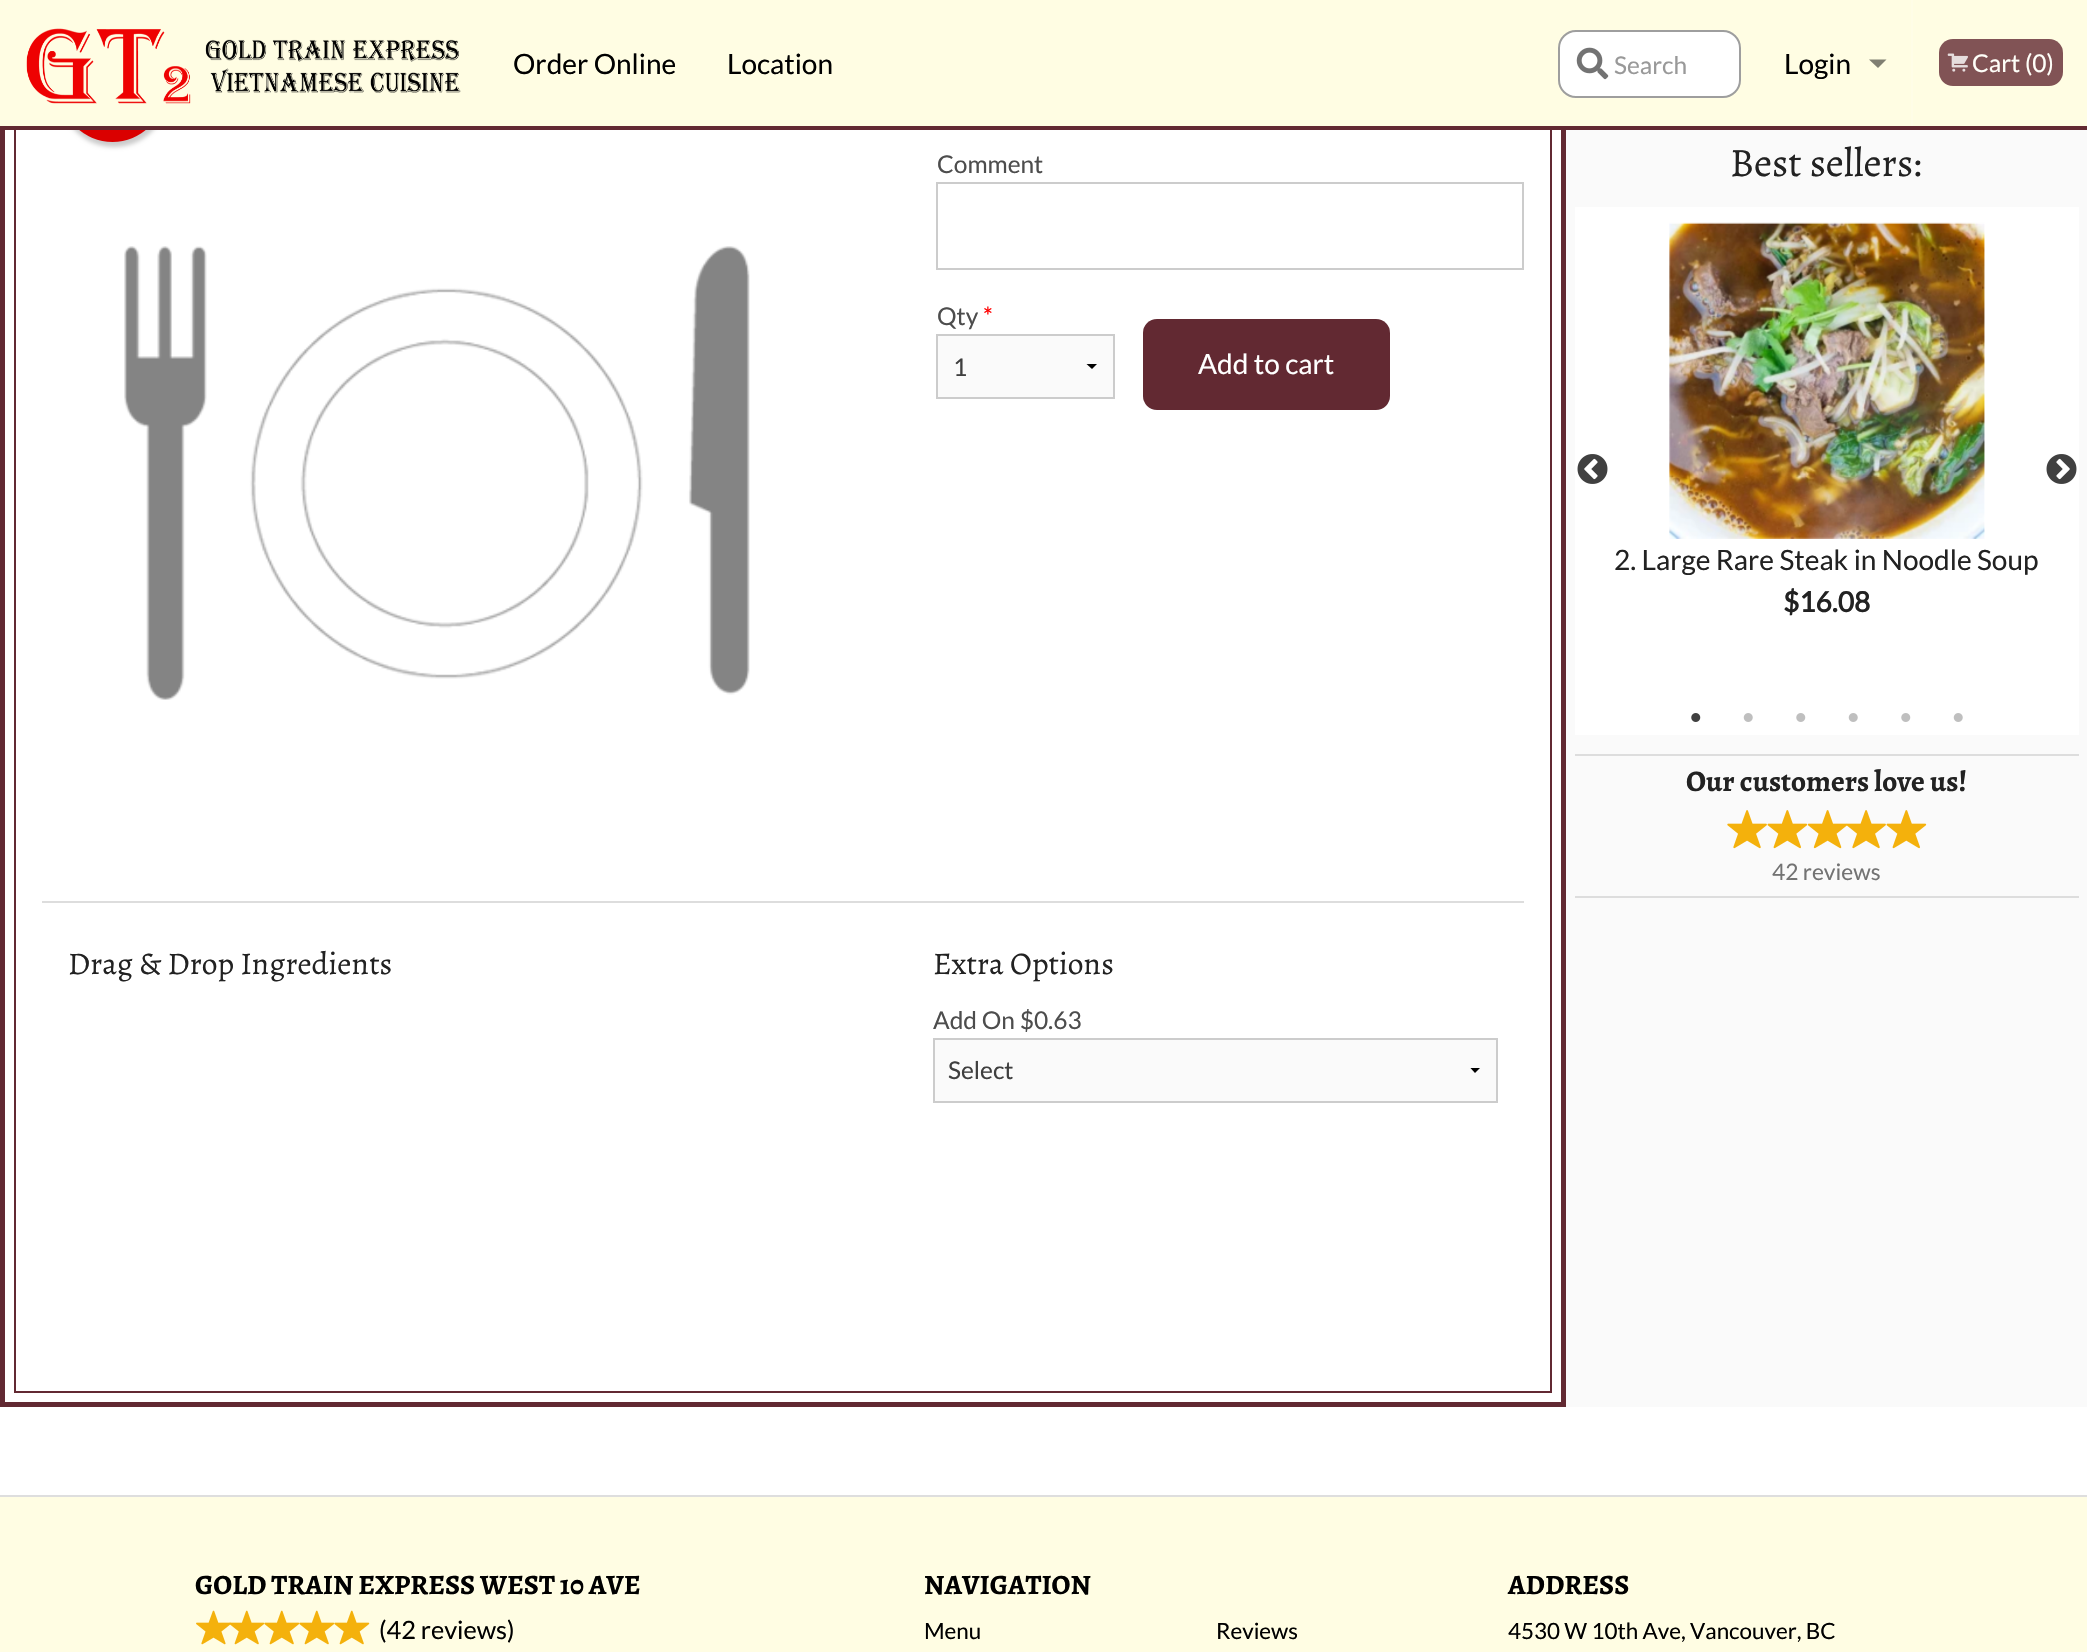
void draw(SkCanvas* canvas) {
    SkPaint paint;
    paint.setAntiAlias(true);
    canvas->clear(0xFFFFFFFF);
    paint.setStyle(SkPaint::kStroke_Style);
    paint.setStrokeWidth(2);
    paint.setColor(0xFF622932);
    canvas->drawRect(SkRect::MakeXYWH(15, -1, 1536, 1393), paint);
    paint.setStrokeWidth(5);
    canvas->drawRect(SkRect::MakeXYWH(2.5f, -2.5f, 1561, 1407), paint);
    paint.setStyle(SkPaint::kFill_Style);
    paint.setColor(0x33000000);
    paint.setMaskFilter(SkMaskFilter::MakeBlur(kNormal_SkBlurStyle, 2));
    canvas->drawRoundRect(SkRect::MakeXYWH(60, 39, 108, 108), 54, 54, paint);
    paint.setMaskFilter(nullptr);
    paint.setColor(0xFFDA0000);
    canvas->drawCircle(112.5f, 89.5f, 52.5f, paint);
    paint.setColor(0xFFFFFDE3);
    canvas->drawRect(SkRect::MakeXYWH(0, 0, 2087, 126), paint);
    paint.setColor(0xFF622932);
    canvas->drawRect(SkRect::MakeXYWH(0, 126, 2087, 4), paint);
    canvas->drawImageRect(SkImages::DeferredFromEncodedData(SkData::MakeFromFileName("img1.png")), SkRect::MakeXYWH(26, 28, 435, 76), SkSamplingOptions());
    SkFont font1(fontMgr->matchFamilyStyle("Lato", SkFontStyle::Normal()), 28);
    font1.setSubpixel(true);
    paint.setColor(0xFF000000);
    canvas->drawString("Order Online", 513, 74, font1, paint);
    canvas->drawString("Location", 727, 74, font1, paint);
    paint.setColor(0xFFFFFFFF);
    canvas->drawRoundRect(SkRect::MakeXYWH(1559, 31, 181, 66), 17, 17, paint);
    paint.setStyle(SkPaint::kStroke_Style);
    paint.setStrokeWidth(2);
    paint.setColor(0xFF9E9E9E);
    canvas->drawRoundRect(SkRect::MakeXYWH(1559, 31, 181, 66), 17, 17, paint);
    canvas->drawImageRect(SkImages::DeferredFromEncodedData(SkData::MakeFromFileName("img2.png")), SkRect::MakeXYWH(1576, 47, 33, 33), SkSamplingOptions());
    SkFont font2(fontMgr->matchFamilyStyle("Lato", SkFontStyle::Normal()), 24.5f);
    font2.setSubpixel(true);
    paint.setStyle(SkPaint::kFill_Style);
    paint.setColor(0xFF999999);
    canvas->drawString("Search", 1614, 74, font2, paint);
    paint.setColor(0xFF000000);
    canvas->drawString("Login", 1784, 74, font1, paint);
    paint.setColor(0xFF807F72);
    canvas->drawPath(SkPathBuilder().moveTo(1869, 59.5f).lineTo(1886.5f, 59.5f).lineTo(1878, 68).close().detach(), paint);
    paint.setColor(0xFFFFFDE7);
    canvas->drawRect(SkRect::MakeXYWH(1911, 0, 2, 126), paint);
    paint.setColor(0xFF815355);
    canvas->drawRoundRect(SkRect::MakeXYWH(1939, 39, 124, 47), 14, 14, paint);
    canvas->drawImageRect(SkImages::DeferredFromEncodedData(SkData::MakeFromFileName("img3.png")), SkRect::MakeXYWH(1947, 53, 21, 19), SkSamplingOptions());
    paint.setColor(0xFFFFFFF9);
    canvas->drawString("Cart (0)", 1972, 72, font2, paint);
    canvas->drawImageRect(SkImages::DeferredFromEncodedData(SkData::MakeFromFileName("img4.png")), SkRect::MakeXYWH(124, 246, 626, 454), SkSamplingOptions());
    paint.setColor(0xFF4D4D4D);
    canvas->drawString("Comment", 937, 173, font2, paint);
    paint.setStyle(SkPaint::kStroke_Style);
    paint.setColor(0xFFCCCCCC);
    canvas->drawRect(SkRect::MakeXYWH(937, 183, 586, 86), paint);
    paint.setStyle(SkPaint::kFill_Style);
    paint.setColor(0xFF4D4D4D);
    canvas->drawString("Qty", 937, 325, font2, paint);
    paint.setColor(0xFFFF0000);
    canvas->drawString("*", 983, 325, font2, paint);
    paint.setColor(0xFFFAFAFA);
    canvas->drawRect(SkRect::MakeXYWH(938, 336, 175, 61), paint);
    paint.setColor(0xFF000000);
    canvas->drawPath(SkPathBuilder().moveTo(1097, 364).lineTo(1092, 369).lineTo(1086.5f, 364).close().detach(), paint);
    paint.setStyle(SkPaint::kStroke_Style);
    paint.setColor(0xFFCCCCCC);
    canvas->drawRect(SkRect::MakeXYWH(937, 335, 177, 63), paint);
    paint.setStyle(SkPaint::kFill_Style);
    paint.setColor(0xFF3F3F3F);
    canvas->drawString("1", 953, 376, font2, paint);
    paint.setColor(0xFF622932);
    canvas->drawRoundRect(SkRect::MakeXYWH(1143, 319, 247, 91), 14, 14, paint);
    paint.setColor(0xFFFFFFFF);
    canvas->drawString("Add to cart", 1198, 374, font1, paint);
    paint.setColor(0xFFDDDDDD);
    canvas->drawRect(SkRect::MakeXYWH(42, 901, 1482, 2), paint);
    SkFont font3(fontMgr->matchFamilyStyle("Sahitya", SkFontStyle::Normal()), 31.5f);
    font3.setSubpixel(true);
    paint.setColor(0xFF222222);
    canvas->drawString("Drag & Drop Ingredients", 68, 974, font3, paint);
    canvas->drawString("Extra Options", 933, 974, font3, paint);
    paint.setColor(0xFF4D4D4D);
    canvas->drawString("Add On $0.63", 933, 1029, font2, paint);
    paint.setColor(0xFFFAFAFA);
    canvas->drawRect(SkRect::MakeXYWH(935, 1040, 561, 61), paint);
    canvas->save();
    canvas->clipRect(SkRect::MakeXYWH(1454, 1068, 42, 5));
    paint.setColor(0xFF000000);
    canvas->drawPath(SkPathBuilder().moveTo(1480.5f, 1067.5f).lineTo(1475, 1073).lineTo(1470, 1067.5f).close().detach(), paint);
    canvas->restore();
    paint.setStyle(SkPaint::kStroke_Style);
    paint.setColor(0xFFCCCCCC);
    canvas->drawRect(SkRect::MakeXYWH(934, 1039, 563, 63), paint);
    paint.setStyle(SkPaint::kFill_Style);
    paint.setColor(0xFF3F3F3F);
    canvas->drawString("Select", 948, 1079, font2, paint);
    paint.setColor(0xFFFAFAFA);
    canvas->drawRect(SkRect::MakeXYWH(1566, 130, 521, 1277), paint);
    SkFont font4(fontMgr->matchFamilyStyle("Sahitya", SkFontStyle::Normal()), 40.25f);
    font4.setSubpixel(true);
    paint.setColor(0xFF222222);
    canvas->drawString("Best sellers:", 1730, 176, font4, paint);
    paint.setColor(0xFFFFFFFF);
    canvas->drawRect(SkRect::MakeXYWH(1575, 207, 504, 528), paint);
    canvas->drawImageRect(SkImages::DeferredFromEncodedData(SkData::MakeFromFileName("img5.png")), SkRect::MakeXYWH(1577, 454, 31, 30), SkSamplingOptions());
    canvas->drawImageRect(SkImages::DeferredFromEncodedData(SkData::MakeFromFileName("img6.png")), SkRect::MakeXYWH(2046, 454, 31, 30), SkSamplingOptions());
    canvas->drawImageRect(SkImages::DeferredFromEncodedData(SkData::MakeFromFileName("img7.png")), SkRect::MakeXYWH(1669, 222, 316, 317), SkSamplingOptions());
    paint.setColor(0xFF222222);
    canvas->drawString("2. Large Rare Steak in Noodle Soup", 1614, 570, font1, paint);
    SkFont font5(fontMgr->matchFamilyStyle("Lato", SkFontStyle::Bold()), 28);
    font5.setSubpixel(true);
    canvas->drawString("$16.08", 1783, 612, font5, paint);
    canvas->drawImageRect(SkImages::DeferredFromEncodedData(SkData::MakeFromFileName("img8.png")), SkRect::MakeXYWH(1691, 713, 10, 9), SkSamplingOptions());
    canvas->drawImageRect(SkImages::DeferredFromEncodedData(SkData::MakeFromFileName("img9.png")), SkRect::MakeXYWH(1743, 713, 10, 9), SkSamplingOptions());
    canvas->drawImageRect(SkImages::DeferredFromEncodedData(SkData::MakeFromFileName("img10.png")), SkRect::MakeXYWH(1796, 713, 10, 9), SkSamplingOptions());
    canvas->drawImageRect(SkImages::DeferredFromEncodedData(SkData::MakeFromFileName("img9.png")), SkRect::MakeXYWH(1848, 713, 10, 9), SkSamplingOptions());
    canvas->drawImageRect(SkImages::DeferredFromEncodedData(SkData::MakeFromFileName("img10.png")), SkRect::MakeXYWH(1901, 713, 10, 9), SkSamplingOptions());
    canvas->drawImageRect(SkImages::DeferredFromEncodedData(SkData::MakeFromFileName("img9.png")), SkRect::MakeXYWH(1953, 713, 10, 9), SkSamplingOptions());
    paint.setColor(0xFFDDDDDD);
    canvas->drawRect(SkRect::MakeXYWH(1575, 754, 504, 2), paint);
    SkFont font6(fontMgr->matchFamilyStyle("Sahitya", SkFontStyle::Bold()), 29.75f);
    font6.setSubpixel(true);
    paint.setColor(0xFF222222);
    canvas->drawString("Our customers love us!", 1686, 791, font6, paint);
    canvas->drawImageRect(SkImages::DeferredFromEncodedData(SkData::MakeFromFileName("img11.png")), SkRect::MakeXYWH(1727, 810, 40, 39), SkSamplingOptions());
    canvas->drawImageRect(SkImages::DeferredFromEncodedData(SkData::MakeFromFileName("img12.png")), SkRect::MakeXYWH(1767, 810, 41, 39), SkSamplingOptions());
    canvas->drawImageRect(SkImages::DeferredFromEncodedData(SkData::MakeFromFileName("img13.png")), SkRect::MakeXYWH(1807, 810, 41, 39), SkSamplingOptions());
    canvas->drawImageRect(SkImages::DeferredFromEncodedData(SkData::MakeFromFileName("img14.png")), SkRect::MakeXYWH(1846, 810, 40, 39), SkSamplingOptions());
    canvas->drawImageRect(SkImages::DeferredFromEncodedData(SkData::MakeFromFileName("img12.png")), SkRect::MakeXYWH(1886, 810, 41, 39), SkSamplingOptions());
    SkFont font7(fontMgr->matchFamilyStyle("Lato", SkFontStyle::Normal()), 22.75f);
    font7.setSubpixel(true);
    paint.setColor(0xFF737373);
    canvas->drawString("42 reviews", 1772, 880, font7, paint);
    paint.setColor(0xFFDDDDDD);
    canvas->drawRect(SkRect::MakeXYWH(1575, 896, 504, 2), paint);
    paint.setColor(0xFFFFFDE3);
    canvas->drawRect(SkRect::MakeXYWH(0, 1497, 2087, 155), paint);
    paint.setColor(0xFFDEDEDE);
    canvas->drawRect(SkRect::MakeXYWH(0, 1495, 2087, 2), paint);
    SkFont font8(fontMgr->matchFamilyStyle("Sahitya", SkFontStyle::Bold()), 28);
    font8.setSubpixel(true);
    paint.setColor(0xFF000000);
    canvas->drawString("GOLD TRAIN EXPRESS WEST 10 AVE", 195, 1594, font8, paint);
    canvas->drawImageRect(SkImages::DeferredFromEncodedData(SkData::MakeFromFileName("img15.png")), SkRect::MakeXYWH(196, 1610, 35, 35), SkSamplingOptions());
    canvas->drawImageRect(SkImages::DeferredFromEncodedData(SkData::MakeFromFileName("img16.png")), SkRect::MakeXYWH(229, 1610, 36, 35), SkSamplingOptions());
    canvas->drawImageRect(SkImages::DeferredFromEncodedData(SkData::MakeFromFileName("img17.png")), SkRect::MakeXYWH(264, 1610, 36, 35), SkSamplingOptions());
    canvas->drawImageRect(SkImages::DeferredFromEncodedData(SkData::MakeFromFileName("img17.png")), SkRect::MakeXYWH(299, 1610, 36, 35), SkSamplingOptions());
    canvas->drawImageRect(SkImages::DeferredFromEncodedData(SkData::MakeFromFileName("img17.png")), SkRect::MakeXYWH(334, 1610, 36, 35), SkSamplingOptions());
    SkFont font9(fontMgr->matchFamilyStyle("Lato", SkFontStyle::Normal()), 25.25f);
    font9.setSubpixel(true);
    canvas->drawString("(42 reviews)", 379, 1639, font9, paint);
    canvas->drawString("NAVIGATION", 924, 1594, font8, paint);
    SkFont font10(fontMgr->matchFamilyStyle("Lato", SkFontStyle::Normal()), 22.4f);
    font10.setSubpixel(true);
    canvas->drawString("Menu", 924, 1639, font10, paint);
    canvas->drawString("Reviews", 1216, 1639, font10, paint);
    canvas->drawString("ADDRESS", 1508, 1594, font8, paint);
    canvas->drawString("4530 W 10th Ave, Vancouver, BC", 1508, 1639, font10, paint);
}
